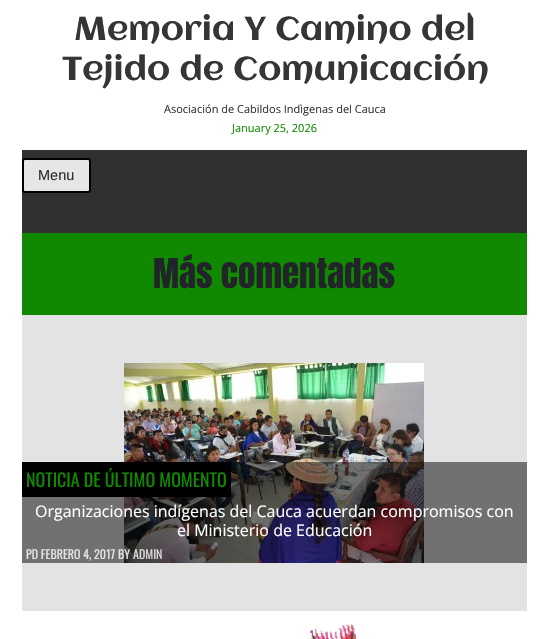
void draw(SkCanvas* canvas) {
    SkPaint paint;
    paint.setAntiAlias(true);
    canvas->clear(0xFFFFFFFF);
    SkFont font1(fontMgr->matchFamilyStyle("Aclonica", SkFontStyle::Normal()), 33);
    font1.setSubpixel(true);
    paint.setColor(0xFF353535);
    canvas->drawString("Memoria Y Camino del", 74, 40, font1, paint);
    canvas->drawString("Tejido de Comunicación", 62, 80, font1, paint);
    SkFont font2(fontMgr->matchFamilyStyle("Open Sans", SkFontStyle::Normal()), 11);
    font2.setSubpixel(true);
    canvas->drawString("Asociación de Cabildos Indìgenas del Cauca", 164, 113, font2, paint);
    paint.setColor(0xFF108900);
    canvas->drawString("January 25, 2026", 232, 132, font2, paint);
    paint.setColor(0xFF303030);
    canvas->drawRect(SkRect::MakeXYWH(22, 150, 505, 83), paint);
    paint.setColor(0xFFE6E6E6);
    canvas->drawRoundRect(SkRect::MakeXYWH(23, 159, 67, 33), 2, 2, paint);
    paint.setStyle(SkPaint::kStroke_Style);
    paint.setStrokeWidth(2);
    paint.setColor(0xFF000000);
    canvas->drawRoundRect(SkRect::MakeXYWH(23, 159, 67, 33), 2, 2, paint);
    SkFont font3(fontMgr->matchFamilyStyle("Liberation Sans", SkFontStyle::Normal()), 14.5f);
    font3.setSubpixel(true);
    paint.setStyle(SkPaint::kFill_Style);
    paint.setColor(0xFF2E2E2E);
    canvas->drawString("Menu", 38, 180, font3, paint);
    paint.setColor(0xFFE4E3E3);
    canvas->drawRect(SkRect::MakeXYWH(22, 315, 505, 296), paint);
    paint.setColor(0xFF108900);
    canvas->drawRect(SkRect::MakeXYWH(22, 233, 505, 82), paint);
    SkFont font4(fontMgr->matchFamilyStyle("Anton", SkFontStyle::Normal()), 35);
    font4.setSubpixel(true);
    paint.setColor(0xFF212529);
    canvas->drawString("Más comentadas", 153, 288, font4, paint);
    canvas->drawImageRect(SkImages::DeferredFromEncodedData(SkData::MakeFromFileName("img1.png")), SkRect::MakeXYWH(124, 363, 300, 200), SkSamplingOptions());
    paint.setColor(0x80000000);
    canvas->drawRect(SkRect::MakeXYWH(22, 462, 505, 101), paint);
    paint.setColor(0xFF000000);
    canvas->drawRect(SkRect::MakeXYWH(22, 462, 209, 35), paint);
    SkFont font5(fontMgr->matchFamilyStyle("Oswald", SkFontStyle::Normal()), 18);
    font5.setSubpixel(true);
    paint.setColor(0xFF108900);
    canvas->drawString("NOTICIA DE ÚLTIMO MOMENTO", 26, 487, font5, paint);
    SkFont font6(fontMgr->matchFamilyStyle("Open Sans", SkFontStyle::Normal()), 16);
    font6.setSubpixel(true);
    paint.setColor(0xFFFFFFFF);
    canvas->drawString("Organizaciones indígenas del Cauca acuerdan compromisos con", 35, 517, font6, paint);
    canvas->drawString("el Ministerio de Educación", 177, 536, font6, paint);
    SkFont font7(fontMgr->matchFamilyStyle("Oswald", SkFontStyle::Normal()), 12);
    font7.setSubpixel(true);
    paint.setColor(0xFFE3E3E3);
    canvas->drawString("PD FEBRERO 4, 2017", 26, 559, font7, paint);
    canvas->drawString("BY", 118, 559, font7, paint);
    paint.setColor(0xFFDBDADB);
    canvas->drawString("ADMIN", 133, 559, font7, paint);
    canvas->drawImageRect(SkImages::DeferredFromEncodedData(SkData::MakeFromFileName("img2.png")), SkRect::MakeXYWH(22, 611, 505, 28), SkSamplingOptions());
}
